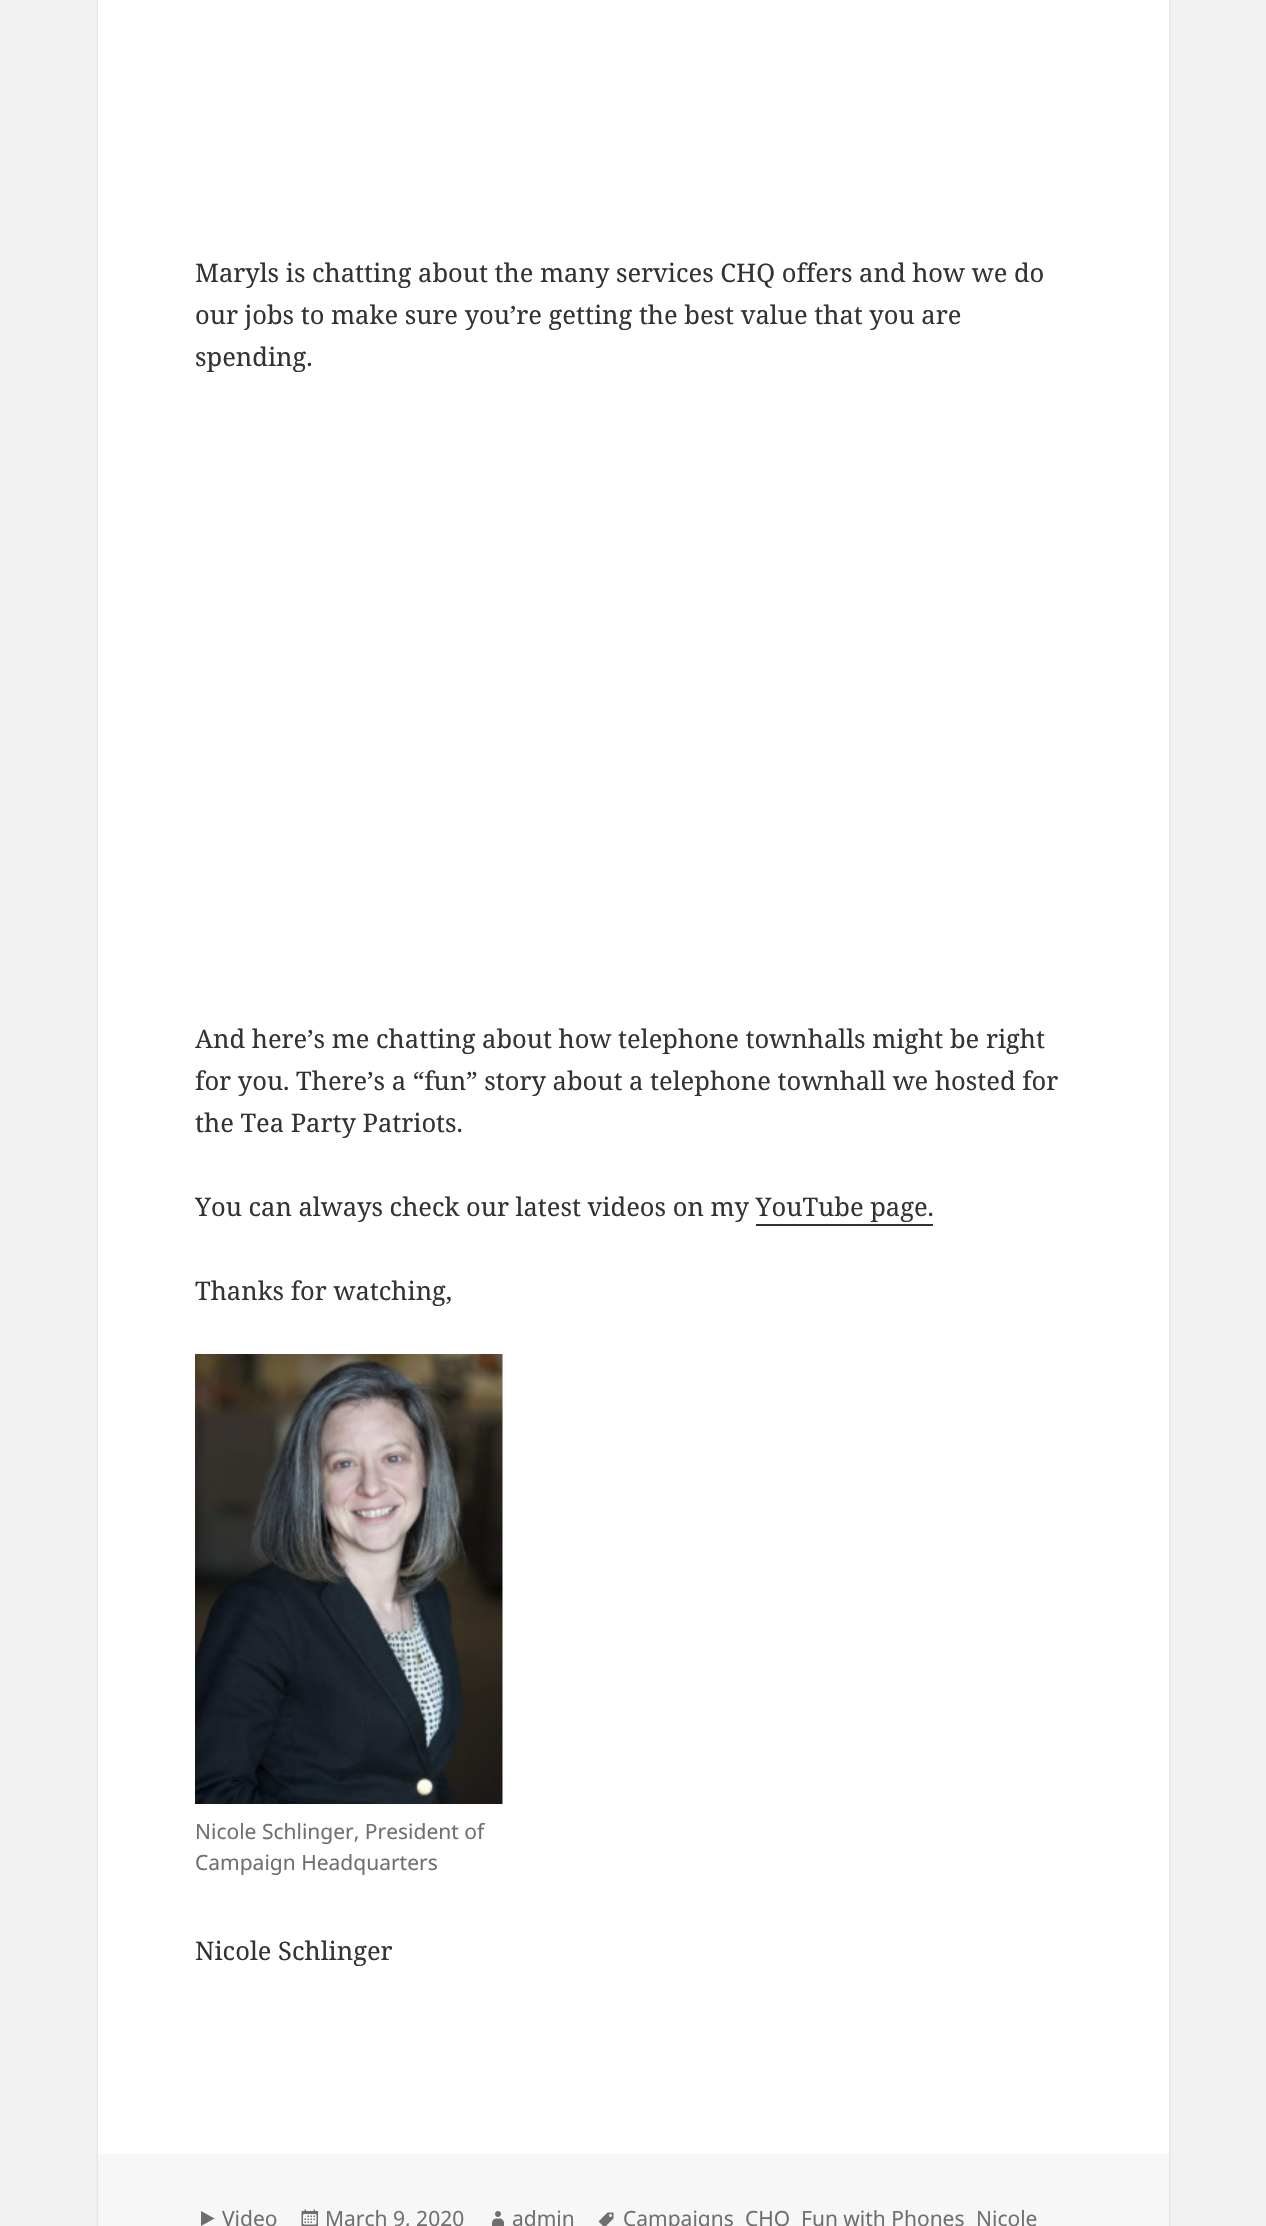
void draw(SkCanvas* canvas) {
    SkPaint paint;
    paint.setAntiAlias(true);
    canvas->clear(0xFFF1F1F1);
    paint.setColor(0x26000000);
    paint.setMaskFilter(SkMaskFilter::MakeBlur(kNormal_SkBlurStyle, 1));
    canvas->drawRect(SkRect::MakeXYWH(98, -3, 1071, 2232), paint);
    paint.setMaskFilter(nullptr);
    paint.setColor(0xFFFFFFFF);
    canvas->drawRect(SkRect::MakeXYWH(98, 0, 1071, 2154), paint);
    SkFont font1(fontMgr->matchFamilyStyle("Noto Serif", SkFontStyle::Normal()), 25.5f);
    font1.setSubpixel(true);
    paint.setColor(0xFF333333);
    canvas->drawString("Maryls is chatting about the many services CHQ offers and how we do", 195, 282, font1, paint);
    canvas->drawString("our jobs to make sure you’re getting the best value that you are", 195, 324, font1, paint);
    canvas->drawString("spending.", 195, 366, font1, paint);
    canvas->drawString("And here’s me chatting about how telephone townhalls might be right", 195, 1048, font1, paint);
    canvas->drawString("for you. There’s a “fun” story about a telephone townhall we hosted for", 195, 1090, font1, paint);
    canvas->drawString("the Tea Party Patriots.", 195, 1132, font1, paint);
    canvas->drawString("You can always check our latest videos on my YouTube page.", 195, 1216, font1, paint);
    canvas->drawRect(SkRect::MakeXYWH(756, 1224, 177, 2), paint);
    canvas->drawString("Thanks for watching,", 195, 1300, font1, paint);
    canvas->drawImageRect(SkImages::DeferredFromEncodedData(SkData::MakeFromFileName("img1.png")), SkRect::MakeXYWH(195, 1354, 308, 450), SkSamplingOptions());
    SkFont font2(fontMgr->matchFamilyStyle("Noto Sans", SkFontStyle::Normal()), 21);
    font2.setSubpixel(true);
    paint.setColor(0xFF707070);
    canvas->drawString("Nicole Schlinger, President of", 195, 1839, font2, paint);
    canvas->drawString("Campaign Headquarters", 195, 1870, font2, paint);
    paint.setColor(0xFF333333);
    canvas->drawString("Nicole Schlinger", 195, 1960, font1, paint);
    paint.setColor(0xFFF7F7F7);
    canvas->drawRect(SkRect::MakeXYWH(98, 2154, 1071, 72), paint);
    paint.setColor(0xFF6E6E6E);
    canvas->drawPath(SkPathBuilder().moveTo(201, 2211).lineTo(214.5f, 2218.5f).lineTo(201, 2226).close().detach(), paint);
    paint.setColor(0xFF707070);
    canvas->drawString("Video", 222, 2226, font2, paint);
    canvas->drawImageRect(SkImages::DeferredFromEncodedData(SkData::MakeFromFileName("img2.png")), SkRect::MakeXYWH(301, 2209, 17, 17), SkSamplingOptions());
    canvas->drawString("March 9, 2020", 325, 2226, font2, paint);
    canvas->drawImageRect(SkImages::DeferredFromEncodedData(SkData::MakeFromFileName("img3.png")), SkRect::MakeXYWH(492, 2211, 12, 15), SkSamplingOptions());
    canvas->drawString("admin", 512, 2226, font2, paint);
    canvas->drawImageRect(SkImages::DeferredFromEncodedData(SkData::MakeFromFileName("img4.png")), SkRect::MakeXYWH(598, 2212, 16, 14), SkSamplingOptions());
    canvas->drawString("Campaigns", 623, 2226, font2, paint);
    canvas->drawString("CHQ", 745, 2226, font2, paint);
    canvas->drawString("Fun with Phones", 801, 2226, font2, paint);
    canvas->drawString("Nicole", 976, 2226, font2, paint);
}
